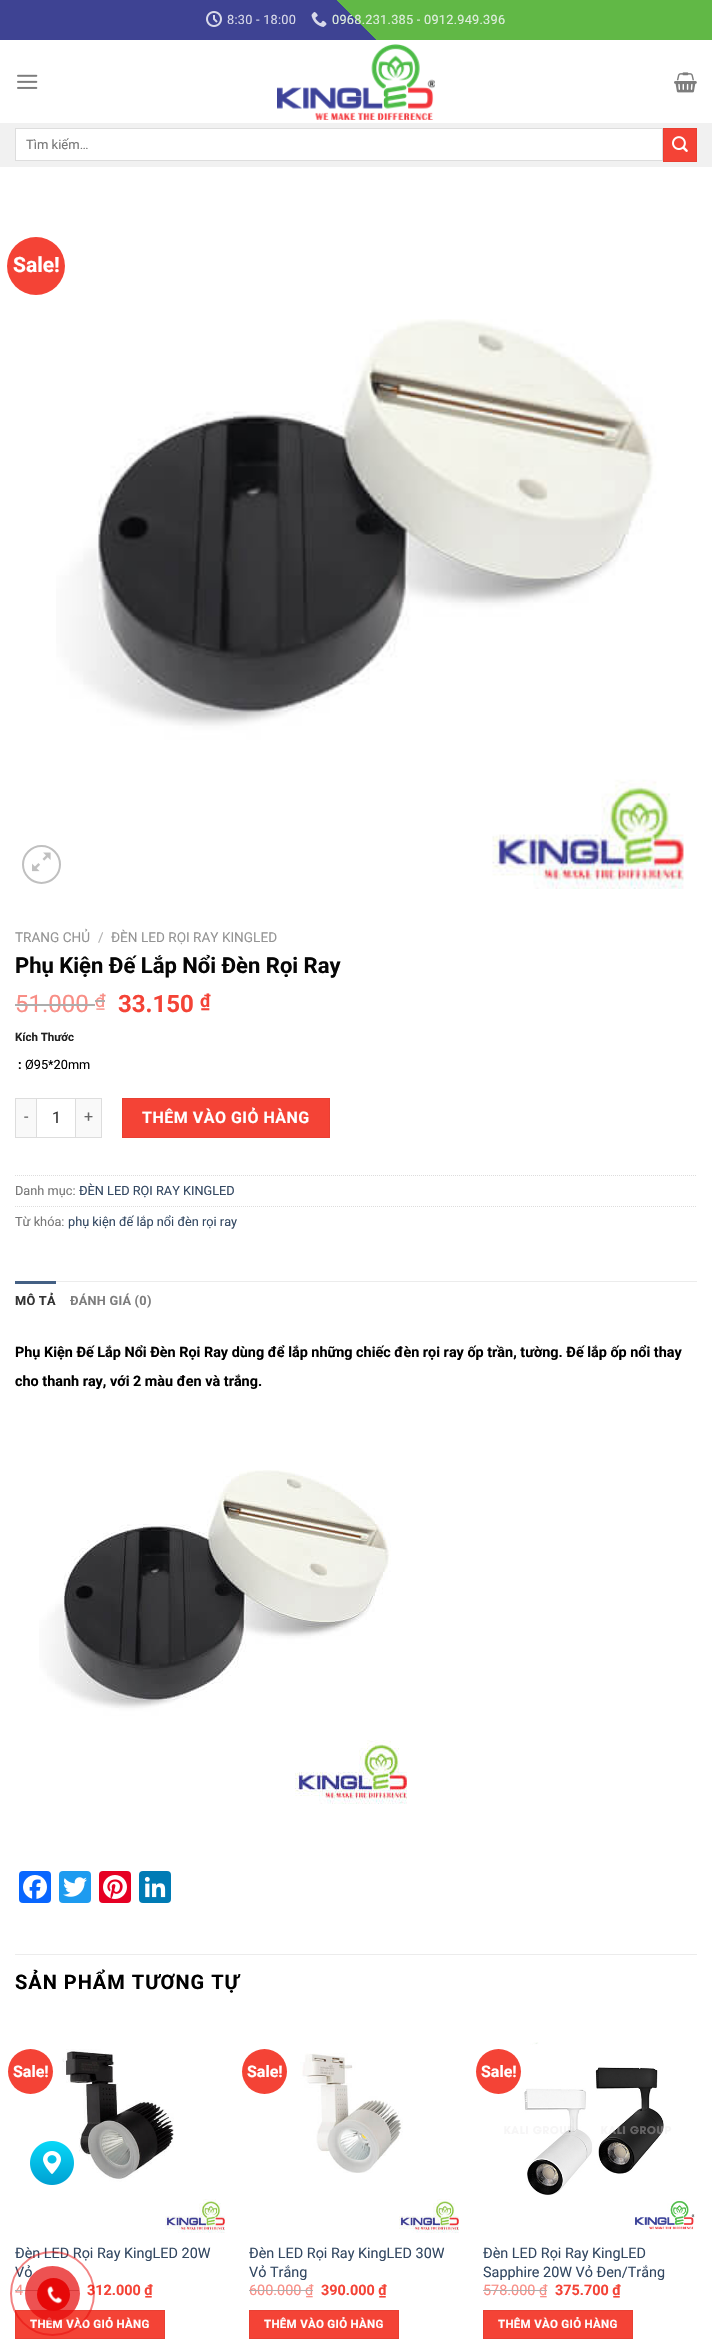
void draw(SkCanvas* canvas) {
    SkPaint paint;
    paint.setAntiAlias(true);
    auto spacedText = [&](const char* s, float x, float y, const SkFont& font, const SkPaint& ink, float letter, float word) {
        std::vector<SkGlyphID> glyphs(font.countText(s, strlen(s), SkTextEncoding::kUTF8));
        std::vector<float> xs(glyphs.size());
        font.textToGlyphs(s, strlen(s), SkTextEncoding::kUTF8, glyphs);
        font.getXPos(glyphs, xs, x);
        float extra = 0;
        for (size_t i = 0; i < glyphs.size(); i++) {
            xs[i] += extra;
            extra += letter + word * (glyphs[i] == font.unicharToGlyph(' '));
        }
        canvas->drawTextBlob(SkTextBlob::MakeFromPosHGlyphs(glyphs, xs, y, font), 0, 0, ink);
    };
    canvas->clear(0xFFFFFFFF);
    {
        const SkColor colors[] = {0xFF3E4393, 0xFF61B846};
        const float stops[] = {0.5f, 0.5f};
        const SkPoint ends[] = {{168, 208}, {544, -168}};
        paint.setShader(SkGradientShader::MakeLinear(ends, colors, stops, 2, SkTileMode::kClamp));
        paint.setAlpha(255);
    }
    canvas->drawRect(SkRect::MakeXYWH(0, 0, 712, 40), paint);
    canvas->drawImageRect(SkImages::DeferredFromEncodedData(SkData::MakeFromFileName("img1.png")), SkRect::MakeXYWH(206, 11, 16, 16), SkSamplingOptions());
    SkFont font1(fontMgr->matchFamilyStyle("Roboto", SkFontStyle::Normal()), 12.75f);
    font1.setSubpixel(true);
    paint.setShader(nullptr);
    paint.setColor(0xFFD8D9E9);
    spacedText("8:30 - 18:00", 227, 24, font1, paint, 0.25f, 0);
    canvas->drawImageRect(SkImages::DeferredFromEncodedData(SkData::MakeFromFileName("img2.png")), SkRect::MakeXYWH(311, 12, 16, 15), SkSamplingOptions());
    paint.setColor(0xFFDEEDDD);
    spacedText("0968.231.385 - 0912.949.396", 332, 24, font1, paint, 0.25f, 0);
    canvas->drawImageRect(SkImages::DeferredFromEncodedData(SkData::MakeFromFileName("img3.png")), SkRect::MakeXYWH(17, 74, 21, 15), SkSamplingOptions());
    canvas->drawImageRect(SkImages::DeferredFromEncodedData(SkData::MakeFromFileName("img4.png")), SkRect::MakeXYWH(277, 44, 158, 76), SkSamplingOptions());
    canvas->drawImageRect(SkImages::DeferredFromEncodedData(SkData::MakeFromFileName("img5.png")), SkRect::MakeXYWH(674, 72, 23, 21), SkSamplingOptions());
    paint.setColor(0xFFF1F1F1);
    canvas->drawRect(SkRect::MakeXYWH(0, 123, 712, 44), paint);
    paint.setColor(0xFFFFFFFF);
    canvas->drawRect(SkRect::MakeXYWH(15.5f, 128.5f, 647, 32), paint);
    paint.setStyle(SkPaint::kStroke_Style);
    paint.setStrokeWidth(1);
    paint.setColor(0xFFDDDDDD);
    canvas->drawRect(SkRect::MakeXYWH(15.5f, 128.5f, 647, 32), paint);
    SkFont font2(fontMgr->matchFamilyStyle("Roboto", SkFontStyle::Normal()), 13);
    font2.setSubpixel(true);
    paint.setStyle(SkPaint::kFill_Style);
    paint.setColor(0xFF777777);
    canvas->drawString("Tìm kiếm…", 26, 149, font2, paint);
    paint.setColor(0xFFF44336);
    canvas->drawRect(SkRect::MakeXYWH(663.5f, 128.5f, 33, 33), paint);
    paint.setStyle(SkPaint::kStroke_Style);
    paint.setColor(0xFFE84033);
    canvas->drawRect(SkRect::MakeXYWH(663.5f, 128.5f, 33, 33), paint);
    canvas->drawImageRect(SkImages::DeferredFromEncodedData(SkData::MakeFromFileName("img6.png")), SkRect::MakeXYWH(672, 136, 16, 16), SkSamplingOptions());
    paint.setStyle(SkPaint::kFill_Style);
    paint.setColor(0xFFF44336);
    canvas->drawCircle(36, 266, 29, paint);
    SkFont font3(fontMgr->matchFamilyStyle("Roboto", SkFontStyle::Bold()), 21);
    font3.setSubpixel(true);
    paint.setColor(0xFFFFFFFF);
    canvas->drawString("Sale!", 13, 272, font3, paint);
    canvas->drawImageRect(SkImages::DeferredFromEncodedData(SkData::MakeFromFileName("img8.png")), SkRect::MakeXYWH(56, 319, 628, 570), SkSamplingOptions());
    paint.setStyle(SkPaint::kStroke_Style);
    paint.setStrokeWidth(2);
    paint.setColor(0xFFC0C0C0);
    canvas->drawCircle(41.5f, 864.5f, 18.5f, paint);
    canvas->drawImageRect(SkImages::DeferredFromEncodedData(SkData::MakeFromFileName("img7.png")), SkRect::MakeXYWH(32, 852, 19, 20), SkSamplingOptions());
    SkFont font4(fontMgr->matchFamilyStyle("Roboto", SkFontStyle::Normal()), 13.6f);
    font4.setSubpixel(true);
    paint.setStyle(SkPaint::kFill_Style);
    paint.setColor(0xFF949494);
    canvas->drawString("TRANG CHỦ", 15, 942, font4, paint);
    paint.setColor(0xFFB2B2B2);
    canvas->drawString("/", 98, 942, font4, paint);
    paint.setColor(0xFF949494);
    canvas->drawString("ĐÈN LED RỌI RAY KINGLED", 111, 942, font4, paint);
    SkFont font5(fontMgr->matchFamilyStyle("Roboto", SkFontStyle::Bold()), 22);
    font5.setSubpixel(true);
    paint.setColor(0xFF060606);
    canvas->drawString("Phụ Kiện Đế Lắp Nổi Đèn Rọi Ray", 15, 973, font5, paint);
    SkFont font6(fontMgr->matchFamilyStyle("Roboto", SkFontStyle::Normal()), 24);
    font6.setSubpixel(true);
    paint.setColor(0xFFF88E86);
    canvas->drawString("51.000", 15, 1012, font6, paint);
    paint.setColor(0xFFADADAD);
    canvas->drawRect(SkRect::MakeXYWH(15, 1004, 80, 2), paint);
    SkFont font7(fontMgr->matchFamilyStyle("Roboto", SkFontStyle::Normal()), 18);
    font7.setSubpixel(true);
    paint.setColor(0xFFF88E86);
    canvas->drawString("₫", 95, 1007, font7, paint);
    paint.setColor(0xFFADADAD);
    canvas->drawRect(SkRect::MakeXYWH(95, 1000, 10, 2), paint);
    SkFont font8(fontMgr->matchFamilyStyle("Roboto", SkFontStyle::Bold()), 24);
    font8.setSubpixel(true);
    paint.setColor(0xFFF44336);
    canvas->drawString("33.150", 118, 1012, font8, paint);
    SkFont font9(fontMgr->matchFamilyStyle("Roboto", SkFontStyle::Bold()), 18);
    font9.setSubpixel(true);
    canvas->drawString("₫", 200, 1007, font9, paint);
    SkFont font10(fontMgr->matchFamilyStyle("Roboto", SkFontStyle::Bold()), 11.5f);
    font10.setSubpixel(true);
    paint.setColor(0xFF222222);
    canvas->drawString("Kích Thước", 15, 1041, font10, paint);
    SkFont font11(fontMgr->matchFamilyStyle("Roboto", SkFontStyle::Bold()), 12.75f);
    font11.setSubpixel(true);
    paint.setColor(0xFF000000);
    canvas->drawString(":", 18, 1069, font11, paint);
    canvas->drawString("Ø95*20mm", 25, 1069, font1, paint);
    paint.setColor(0xFFF9F9F9);
    canvas->drawRect(SkRect::MakeXYWH(16, 1099, 20, 38), paint);
    paint.setColor(0xFFDDDDDD);
    canvas->drawRect(SkRect::MakeXYWH(15, 1098, 21, 1), paint);
    canvas->drawRect(SkRect::MakeXYWH(15, 1137, 21, 1), paint);
    canvas->drawRect(SkRect::MakeXYWH(15, 1098, 1, 40), paint);
    SkFont font12(fontMgr->matchFamilyStyle("Roboto", SkFontStyle::Normal()), 16);
    font12.setSubpixel(true);
    paint.setColor(0xFF666666);
    canvas->drawString("-", 24, 1122, font12, paint);
    paint.setStyle(SkPaint::kStroke_Style);
    paint.setStrokeWidth(1);
    paint.setColor(0xFFDDDDDD);
    canvas->drawRect(SkRect::MakeXYWH(36.5f, 1098.5f, 39, 39), paint);
    paint.setStyle(SkPaint::kFill_Style);
    paint.setColor(0xFF333333);
    canvas->drawString("1", 52, 1123, font12, paint);
    paint.setColor(0xFFF9F9F9);
    canvas->drawRect(SkRect::MakeXYWH(76, 1099, 25, 38), paint);
    paint.setColor(0xFFDDDDDD);
    canvas->drawRect(SkRect::MakeXYWH(76, 1098, 26, 1), paint);
    canvas->drawRect(SkRect::MakeXYWH(101, 1098, 1, 40), paint);
    canvas->drawRect(SkRect::MakeXYWH(76, 1137, 26, 1), paint);
    paint.setColor(0xFF666666);
    canvas->drawString("+", 84, 1122, font12, paint);
    paint.setColor(0xFFF44336);
    canvas->drawRect(SkRect::MakeXYWH(122.5f, 1098.5f, 207, 39), paint);
    paint.setStyle(SkPaint::kStroke_Style);
    paint.setColor(0xFFE84033);
    canvas->drawRect(SkRect::MakeXYWH(122.5f, 1098.5f, 207, 39), paint);
    SkFont font13(fontMgr->matchFamilyStyle("Roboto", SkFontStyle::Bold()), 16);
    font13.setSubpixel(true);
    paint.setStyle(SkPaint::kFill_Style);
    paint.setColor(0xFFFFFFFF);
    spacedText("THÊM VÀO GIỎ HÀNG", 142, 1123, font13, paint, 0.5f, 0);
    paint.setStyle(SkPaint::kStroke_Style);
    paint.setColor(0xFFDDDDDD);
    paint.setPathEffect(SkDashPathEffect::Make({{1, 1}}, 0));
    canvas->drawPath(SkPathBuilder().moveTo(15, 1175.5f).lineTo(697, 1175.5f).detach(), paint);
    paint.setPathEffect(nullptr);
    paint.setStyle(SkPaint::kFill_Style);
    paint.setColor(0xFF777777);
    canvas->drawString("Danh mục:", 15, 1195, font1, paint);
    paint.setColor(0xFF334862);
    canvas->drawString("ĐÈN LED RỌI RAY KINGLED", 79, 1195, font1, paint);
    paint.setStyle(SkPaint::kStroke_Style);
    paint.setColor(0xFFDDDDDD);
    paint.setPathEffect(SkDashPathEffect::Make({{1, 1}}, 0));
    canvas->drawPath(SkPathBuilder().moveTo(15, 1206.5f).lineTo(697, 1206.5f).detach(), paint);
    paint.setPathEffect(nullptr);
    paint.setStyle(SkPaint::kFill_Style);
    paint.setColor(0xFF777777);
    canvas->drawString("Từ khóa:", 15, 1226, font1, paint);
    paint.setColor(0xFF334862);
    canvas->drawString("phụ kiện đế lắp nổi đèn rọi ray", 68, 1226, font1, paint);
    paint.setColor(0xFFECECEC);
    canvas->drawRect(SkRect::MakeXYWH(56, 1281, 641, 1), paint);
    paint.setColor(0xFF446084);
    canvas->drawRect(SkRect::MakeXYWH(15, 1281, 41, 3), paint);
    paint.setColor(0xFF333333);
    spacedText("MÔ TẢ", 15, 1305, font11, paint, 0.25f, 0);
    paint.setColor(0xFF7D7D7D);
    spacedText("ĐÁNH GIÁ (0)", 70, 1305, font11, paint, 0.25f, 0);
    SkFont font14(fontMgr->matchFamilyStyle("Roboto", SkFontStyle::Bold()), 14.4f);
    font14.setSubpixel(true);
    paint.setColor(0xFF000000);
    canvas->drawString("Phụ Kiện Đế Lắp Nổi Đèn Rọi Ray dùng để lắp những chiếc đèn rọi ray ốp trần, tường. Đế lắp ốp nổi thay", 15, 1357, font14, paint);
    canvas->drawString("cho thanh ray, với 2 màu đen và trắng.", 15, 1386, font14, paint);
    canvas->drawImageRect(SkImages::DeferredFromEncodedData(SkData::MakeFromFileName("img9.png")), SkRect::MakeXYWH(39, 1470, 368, 334), SkSamplingOptions());
    paint.setColor(0xFF0866FF);
    canvas->drawRoundRect(SkRect::MakeXYWH(19, 1871, 32, 32), 4, 4, paint);
    canvas->drawImageRect(SkImages::DeferredFromEncodedData(SkData::MakeFromFileName("img10.png")), SkRect::MakeXYWH(23, 1875, 24, 24), SkSamplingOptions());
    paint.setColor(0xFF1D9BF0);
    canvas->drawRoundRect(SkRect::MakeXYWH(59, 1871, 32, 32), 4, 4, paint);
    canvas->drawImageRect(SkImages::DeferredFromEncodedData(SkData::MakeFromFileName("img11.png")), SkRect::MakeXYWH(63, 1877, 24, 20), SkSamplingOptions());
    paint.setColor(0xFFE60023);
    canvas->drawRoundRect(SkRect::MakeXYWH(99, 1871, 32, 32), 4, 4, paint);
    canvas->drawImageRect(SkImages::DeferredFromEncodedData(SkData::MakeFromFileName("img12.png")), SkRect::MakeXYWH(103, 1875, 24, 24), SkSamplingOptions());
    paint.setColor(0xFF007BB5);
    canvas->drawRoundRect(SkRect::MakeXYWH(139, 1871, 32, 32), 4, 4, paint);
    canvas->drawImageRect(SkImages::DeferredFromEncodedData(SkData::MakeFromFileName("img13.png")), SkRect::MakeXYWH(144, 1876, 22, 22), SkSamplingOptions());
    paint.setColor(0xFFECECEC);
    canvas->drawRect(SkRect::MakeXYWH(15, 1954, 682, 1), paint);
    SkFont font15(fontMgr->matchFamilyStyle("Roboto", SkFontStyle::Bold()), 20);
    font15.setSubpixel(true);
    paint.setColor(0xFF000000);
    spacedText("SẢN PHẨM TƯƠNG TỰ", 15, 1989, font15, paint, 1, 0);
    paint.setColor(0xFFF44336);
    canvas->drawCircle(30.5f, 2071.5f, 22.5f, paint);
    paint.setColor(0xFFFFFFFF);
    canvas->drawString("Sale!", 13, 2077, font13, paint);
    canvas->drawImageRect(SkImages::DeferredFromEncodedData(SkData::MakeFromFileName("img14.png")), SkRect::MakeXYWH(62, 2049, 163, 184), SkSamplingOptions());
    SkFont font16(fontMgr->matchFamilyStyle("Roboto", SkFontStyle::Normal()), 14.4f);
    font16.setSubpixel(true);
    paint.setColor(0xFF334862);
    canvas->drawString("Đèn LED Rọi Ray KingLED 20W", 15, 2258, font16, paint);
    canvas->drawString("Vỏ", 15, 2277, font16, paint);
    paint.setColor(0xFFF88E86);
    canvas->drawString("4", 15, 2295, font16, paint);
    paint.setColor(0xFFADADAD);
    canvas->drawRect(SkRect::MakeXYWH(15, 2290, 64, 1), paint);
    paint.setColor(0xFFF44336);
    canvas->drawString("312.000 ₫", 87, 2295, font14, paint);
    canvas->drawRect(SkRect::MakeXYWH(15.5f, 2310.5f, 149, 28), paint);
    paint.setStyle(SkPaint::kStroke_Style);
    paint.setColor(0xFFE84033);
    canvas->drawRect(SkRect::MakeXYWH(15.5f, 2310.5f, 149, 28), paint);
    paint.setStyle(SkPaint::kFill_Style);
    paint.setColor(0xFFFFFFFF);
    spacedText("THÊM VÀO GIỎ HÀNG", 30, 2328, font10, paint, 0.3f, 0);
    paint.setColor(0xFFF44336);
    canvas->drawCircle(264.5f, 2071.5f, 22.5f, paint);
    paint.setColor(0xFFFFFFFF);
    canvas->drawString("Sale!", 247, 2077, font13, paint);
    canvas->drawImageRect(SkImages::DeferredFromEncodedData(SkData::MakeFromFileName("img15.png")), SkRect::MakeXYWH(300, 2053, 159, 180), SkSamplingOptions());
    paint.setColor(0xFF334862);
    canvas->drawString("Đèn LED Rọi Ray KingLED 30W", 249, 2258, font16, paint);
    canvas->drawString("Vỏ Trắng", 249, 2277, font16, paint);
    paint.setColor(0xFFF88E86);
    canvas->drawString("600.000 ₫", 249, 2295, font16, paint);
    paint.setColor(0xFFADADAD);
    canvas->drawRect(SkRect::MakeXYWH(249, 2290, 64, 1), paint);
    paint.setColor(0xFFF44336);
    canvas->drawString("390.000 ₫", 321, 2295, font14, paint);
    canvas->drawRect(SkRect::MakeXYWH(249.5f, 2310.5f, 149, 28), paint);
    paint.setStyle(SkPaint::kStroke_Style);
    paint.setColor(0xFFE84033);
    canvas->drawRect(SkRect::MakeXYWH(249.5f, 2310.5f, 149, 28), paint);
    paint.setStyle(SkPaint::kFill_Style);
    paint.setColor(0xFFFFFFFF);
    spacedText("THÊM VÀO GIỎ HÀNG", 264, 2328, font10, paint, 0.3f, 0);
    canvas->drawImageRect(SkImages::DeferredFromEncodedData(SkData::MakeFromFileName("img16.png")), SkRect::MakeXYWH(504, 2042, 191, 188), SkSamplingOptions());
    paint.setColor(0xFFF44336);
    canvas->drawCircle(498.5f, 2071.5f, 22.5f, paint);
    paint.setColor(0xFFFFFFFF);
    canvas->drawString("Sale!", 481, 2077, font13, paint);
    paint.setColor(0xFF334862);
    canvas->drawString("Đèn LED Rọi Ray KingLED", 483, 2258, font16, paint);
    canvas->drawString("Sapphire 20W Vỏ Đen/Trắng", 483, 2277, font16, paint);
    paint.setColor(0xFFF88E86);
    canvas->drawString("578.000 ₫", 483, 2295, font16, paint);
    paint.setColor(0xFFADADAD);
    canvas->drawRect(SkRect::MakeXYWH(483, 2290, 64, 1), paint);
    paint.setColor(0xFFF44336);
    canvas->drawString("375.700 ₫", 555, 2295, font14, paint);
    canvas->drawRect(SkRect::MakeXYWH(483.5f, 2310.5f, 149, 28), paint);
    paint.setStyle(SkPaint::kStroke_Style);
    paint.setColor(0xFFE84033);
    canvas->drawRect(SkRect::MakeXYWH(483.5f, 2310.5f, 149, 28), paint);
    paint.setStyle(SkPaint::kFill_Style);
    paint.setColor(0xFFFFFFFF);
    spacedText("THÊM VÀO GIỎ HÀNG", 498, 2328, font10, paint, 0.3f, 0);
    canvas->drawImageRect(SkImages::DeferredFromEncodedData(SkData::MakeFromFileName("img17.png")), SkRect::MakeXYWH(30, 2141, 44, 44), SkSamplingOptions());
    paint.setStyle(SkPaint::kStroke_Style);
    paint.setStrokeWidth(2);
    paint.setColor(0x80E60808);
    canvas->drawCircle(52.5f, 2293.5f, 41.5f, paint);
    paint.setStyle(SkPaint::kFill_Style);
    paint.setColor(0xB3E60808);
    canvas->drawCircle(52.5f, 2293.5f, 27.5f, paint);
    paint.setColor(0xFFE60808);
    canvas->drawCircle(53.5f, 2294.5f, 16.5f, paint);
    canvas->drawImageRect(SkImages::DeferredFromEncodedData(SkData::MakeFromFileName("img18.png")), SkRect::MakeXYWH(47, 2286, 16, 18), SkSamplingOptions());
}
